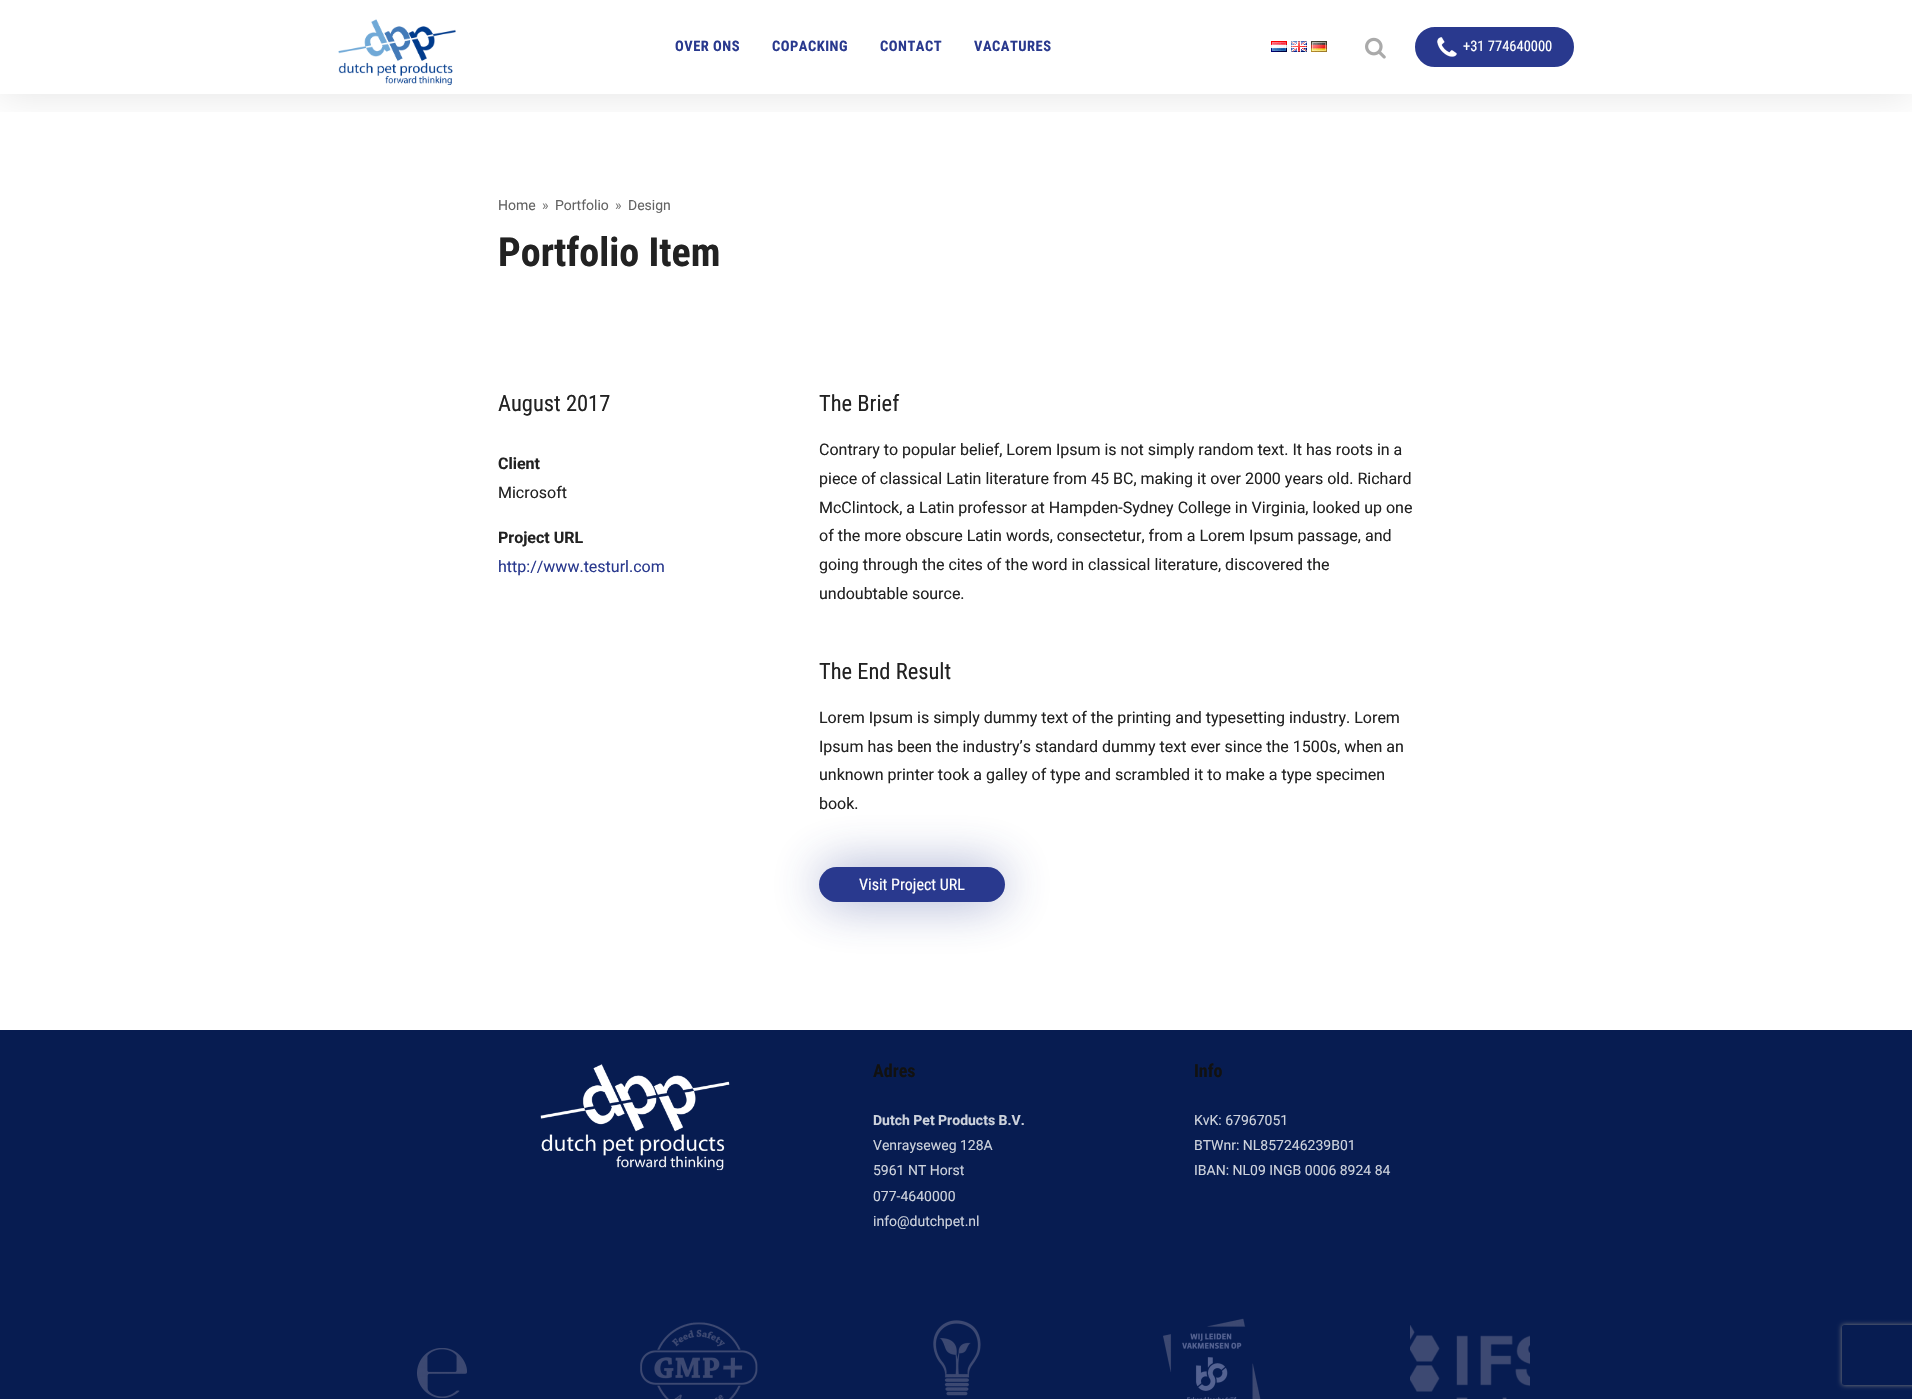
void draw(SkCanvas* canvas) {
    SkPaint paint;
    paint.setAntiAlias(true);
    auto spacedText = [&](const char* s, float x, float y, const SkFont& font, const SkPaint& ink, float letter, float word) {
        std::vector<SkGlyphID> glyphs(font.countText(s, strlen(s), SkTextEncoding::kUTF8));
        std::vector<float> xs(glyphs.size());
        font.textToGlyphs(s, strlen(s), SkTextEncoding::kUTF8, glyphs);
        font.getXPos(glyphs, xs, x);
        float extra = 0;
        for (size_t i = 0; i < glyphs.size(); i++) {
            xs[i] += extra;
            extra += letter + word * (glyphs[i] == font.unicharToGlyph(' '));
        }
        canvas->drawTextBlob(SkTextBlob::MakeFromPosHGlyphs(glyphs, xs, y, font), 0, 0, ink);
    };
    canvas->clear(0xFFFFFFFF);
    canvas->save();
    canvas->clipRect(SkRect::MakeXYWH(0, 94, 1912, 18));
    paint.setColor(0x1C000000);
    paint.setMaskFilter(SkMaskFilter::MakeBlur(kNormal_SkBlurStyle, 20));
    canvas->drawRect(SkRect::MakeXYWH(0, 0, 1912, 94), paint);
    paint.setMaskFilter(nullptr);
    canvas->restore();
    canvas->drawImageRect(SkImages::DeferredFromEncodedData(SkData::MakeFromFileName("img1.png")), SkRect::MakeXYWH(338, 19, 118, 66), SkSamplingOptions());
    SkFont font1(fontMgr->matchFamilyStyle("Roboto Condensed", SkFontStyle::Bold()), 14.5f);
    font1.setSubpixel(true);
    paint.setColor(0xFF29398E);
    spacedText("OVER ONS", 675, 51, font1, paint, 0.5f, 0);
    spacedText("COPACKING", 772, 51, font1, paint, 0.5f, 0);
    spacedText("CONTACT", 880, 51, font1, paint, 0.5f, 0);
    spacedText("VACATURES", 974, 51, font1, paint, 0.5f, 0);
    canvas->drawImageRect(SkImages::DeferredFromEncodedData(SkData::MakeFromFileName("img2.png")), SkRect::MakeXYWH(1271, 41, 16, 11), SkSamplingOptions());
    canvas->drawImageRect(SkImages::DeferredFromEncodedData(SkData::MakeFromFileName("img3.png")), SkRect::MakeXYWH(1291, 41, 16, 11), SkSamplingOptions());
    canvas->drawImageRect(SkImages::DeferredFromEncodedData(SkData::MakeFromFileName("img4.png")), SkRect::MakeXYWH(1311, 41, 16, 11), SkSamplingOptions());
    canvas->drawImageRect(SkImages::DeferredFromEncodedData(SkData::MakeFromFileName("img5.png")), SkRect::MakeXYWH(1365, 37, 21, 22), SkSamplingOptions());
    canvas->drawRoundRect(SkRect::MakeXYWH(1416, 28, 157, 38), 19, 19, paint);
    paint.setStyle(SkPaint::kStroke_Style);
    paint.setStrokeWidth(2);
    canvas->drawRoundRect(SkRect::MakeXYWH(1416, 28, 157, 38), 19, 19, paint);
    canvas->drawImageRect(SkImages::DeferredFromEncodedData(SkData::MakeFromFileName("img6.png")), SkRect::MakeXYWH(1437, 37, 20, 20), SkSamplingOptions());
    SkFont font2(fontMgr->matchFamilyStyle("Roboto Condensed", SkFontStyle::Normal()), 14.5f);
    font2.setSubpixel(true);
    paint.setStyle(SkPaint::kFill_Style);
    paint.setColor(0xFFFFFFFF);
    canvas->drawString("+31 774640000", 1463, 51, font2, paint);
    SkFont font3(fontMgr->matchFamilyStyle("Roboto", SkFontStyle::Normal()), 14);
    font3.setSubpixel(true);
    paint.setColor(0xFF646464);
    canvas->drawString("Home", 498, 210, font3, paint);
    paint.setColor(0xFF7A7A7A);
    canvas->drawString("»", 542, 210, font3, paint);
    paint.setColor(0xFF646464);
    canvas->drawString("Portfolio", 555, 210, font3, paint);
    paint.setColor(0xFF7A7A7A);
    canvas->drawString("»", 615, 210, font3, paint);
    paint.setColor(0xFF646464);
    canvas->drawString("Design", 628, 210, font3, paint);
    SkFont font4(fontMgr->matchFamilyStyle("Roboto Condensed", SkFontStyle::Bold()), 40);
    font4.setSubpixel(true);
    paint.setColor(0xFF222222);
    canvas->drawString("Portfolio Item", 498, 266, font4, paint);
    SkFont font5(fontMgr->matchFamilyStyle("Roboto Condensed", SkFontStyle::Normal()), 22.5f);
    font5.setSubpixel(true);
    canvas->drawString("August 2017", 498, 411, font5, paint);
    SkFont font6(fontMgr->matchFamilyStyle("Roboto", SkFontStyle::Bold()), 16);
    font6.setSubpixel(true);
    canvas->drawString("Client", 498, 469, font6, paint);
    SkFont font7(fontMgr->matchFamilyStyle("Roboto", SkFontStyle::Normal()), 16);
    font7.setSubpixel(true);
    canvas->drawString("Microsoft", 498, 498, font7, paint);
    canvas->drawString("Project URL", 498, 543, font6, paint);
    paint.setColor(0xFF29398E);
    canvas->drawString("http://www.testurl.com", 498, 572, font7, paint);
    paint.setColor(0xFF222222);
    canvas->drawString("The Brief", 819, 411, font5, paint);
    canvas->drawString("Contrary to popular belief, Lorem Ipsum is not simply random text. It has roots in a", 819, 455, font7, paint);
    canvas->drawString("piece of classical Latin literature from 45 BC, making it over 2000 years old. Richard", 819, 484, font7, paint);
    canvas->drawString("McClintock, a Latin professor at Hampden-Sydney College in Virginia, looked up one", 819, 513, font7, paint);
    canvas->drawString("of the more obscure Latin words, consectetur, from a Lorem Ipsum passage, and", 819, 541, font7, paint);
    canvas->drawString("going through the cites of the word in classical literature, discovered the", 819, 570, font7, paint);
    canvas->drawString("undoubtable source.", 819, 599, font7, paint);
    canvas->drawString("The End Result", 819, 679, font5, paint);
    canvas->drawString("Lorem Ipsum is simply dummy text of the printing and typesetting industry. Lorem", 819, 723, font7, paint);
    canvas->drawString("Ipsum has been the industry’s standard dummy text ever since the 1500s, when an", 819, 752, font7, paint);
    canvas->drawString("unknown printer took a galley of type and scrambled it to make a type specimen", 819, 780, font7, paint);
    paint.setColor(0x7329398E);
    paint.setMaskFilter(SkMaskFilter::MakeBlur(kNormal_SkBlurStyle, 25));
    canvas->drawRoundRect(SkRect::MakeXYWH(819, 867, 186, 35), 17.5f, 17.5f, paint);
    paint.setMaskFilter(nullptr);
    paint.setColor(0xFF222222);
    canvas->drawString("book.", 819, 809, font7, paint);
    paint.setColor(0xFF29398E);
    canvas->drawRoundRect(SkRect::MakeXYWH(819, 867, 186, 35), 17.5f, 17.5f, paint);
    SkFont font8(fontMgr->matchFamilyStyle("Roboto Condensed", SkFontStyle::Normal()), 16);
    font8.setSubpixel(true);
    paint.setColor(0xFFFFFFFF);
    canvas->drawString("Visit Project URL", 859, 890, font8, paint);
    paint.setColor(0xFF071C51);
    canvas->drawRect(SkRect::MakeXYWH(0, 1030, 1912, 369), paint);
    canvas->drawImageRect(SkImages::DeferredFromEncodedData(SkData::MakeFromFileName("img7.png")), SkRect::MakeXYWH(540, 1064, 190, 107), SkSamplingOptions());
    SkFont font9(fontMgr->matchFamilyStyle("Roboto Condensed", SkFontStyle::Bold()), 18);
    font9.setSubpixel(true);
    paint.setColor(0xFF111111);
    canvas->drawString("Adres", 873, 1077, font9, paint);
    SkFont font10(fontMgr->matchFamilyStyle("Roboto", SkFontStyle::Bold()), 14);
    font10.setSubpixel(true);
    paint.setColor(0xFFCDD2DC);
    canvas->drawString("Dutch Pet Products B.V.", 873, 1125, font10, paint);
    canvas->drawString("Venrayseweg 128A", 873, 1150, font3, paint);
    canvas->drawString("5961 NT Horst", 873, 1175, font3, paint);
    canvas->drawString("077-4640000", 873, 1201, font3, paint);
    canvas->drawString("info@dutchpet.nl", 873, 1226, font3, paint);
    paint.setColor(0xFF111111);
    canvas->drawString("Info", 1194, 1077, font9, paint);
    paint.setColor(0xFFCDD2DC);
    canvas->drawString("KvK: 67967051", 1194, 1125, font3, paint);
    canvas->drawString("BTWnr: NL857246239B01", 1194, 1150, font3, paint);
    canvas->drawString("IBAN: NL09 INGB 0006 8924 84", 1194, 1175, font3, paint);
    canvas->drawImageRect(SkImages::DeferredFromEncodedData(SkData::MakeFromFileName("img8.png")), SkRect::MakeXYWH(417, 1348, 50, 50), SkSamplingOptions());
    canvas->drawImageRect(SkImages::DeferredFromEncodedData(SkData::MakeFromFileName("img9.png")), SkRect::MakeXYWH(640, 1322, 118, 77), SkSamplingOptions());
    canvas->drawImageRect(SkImages::DeferredFromEncodedData(SkData::MakeFromFileName("img10.png")), SkRect::MakeXYWH(933, 1320, 48, 76), SkSamplingOptions());
    canvas->drawImageRect(SkImages::DeferredFromEncodedData(SkData::MakeFromFileName("img11.png")), SkRect::MakeXYWH(1163, 1318, 98, 81), SkSamplingOptions());
    canvas->drawImageRect(SkImages::DeferredFromEncodedData(SkData::MakeFromFileName("img12.png")), SkRect::MakeXYWH(1410, 1325, 120, 74), SkSamplingOptions());
    canvas->save();
    canvas->clipPath(SkPathBuilder(SkPathFillType::kEvenOdd).moveTo(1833, 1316).lineTo(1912, 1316).lineTo(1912, 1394).lineTo(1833, 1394).close().moveTo(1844, 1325).lineTo(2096, 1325).cubicTo(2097, 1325, 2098, 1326, 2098, 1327).lineTo(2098, 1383).cubicTo(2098, 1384, 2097, 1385, 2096, 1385).lineTo(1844, 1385).cubicTo(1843, 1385, 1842, 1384, 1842, 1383).lineTo(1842, 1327).cubicTo(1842, 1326, 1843, 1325, 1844, 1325).close().detach(), true);
    paint.setColor(0xFF808080);
    paint.setMaskFilter(SkMaskFilter::MakeBlur(kNormal_SkBlurStyle, 2.5f));
    canvas->drawRoundRect(SkRect::MakeXYWH(1842, 1325, 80, 60), 2, 2, paint);
    paint.setMaskFilter(nullptr);
    canvas->restore();
}
